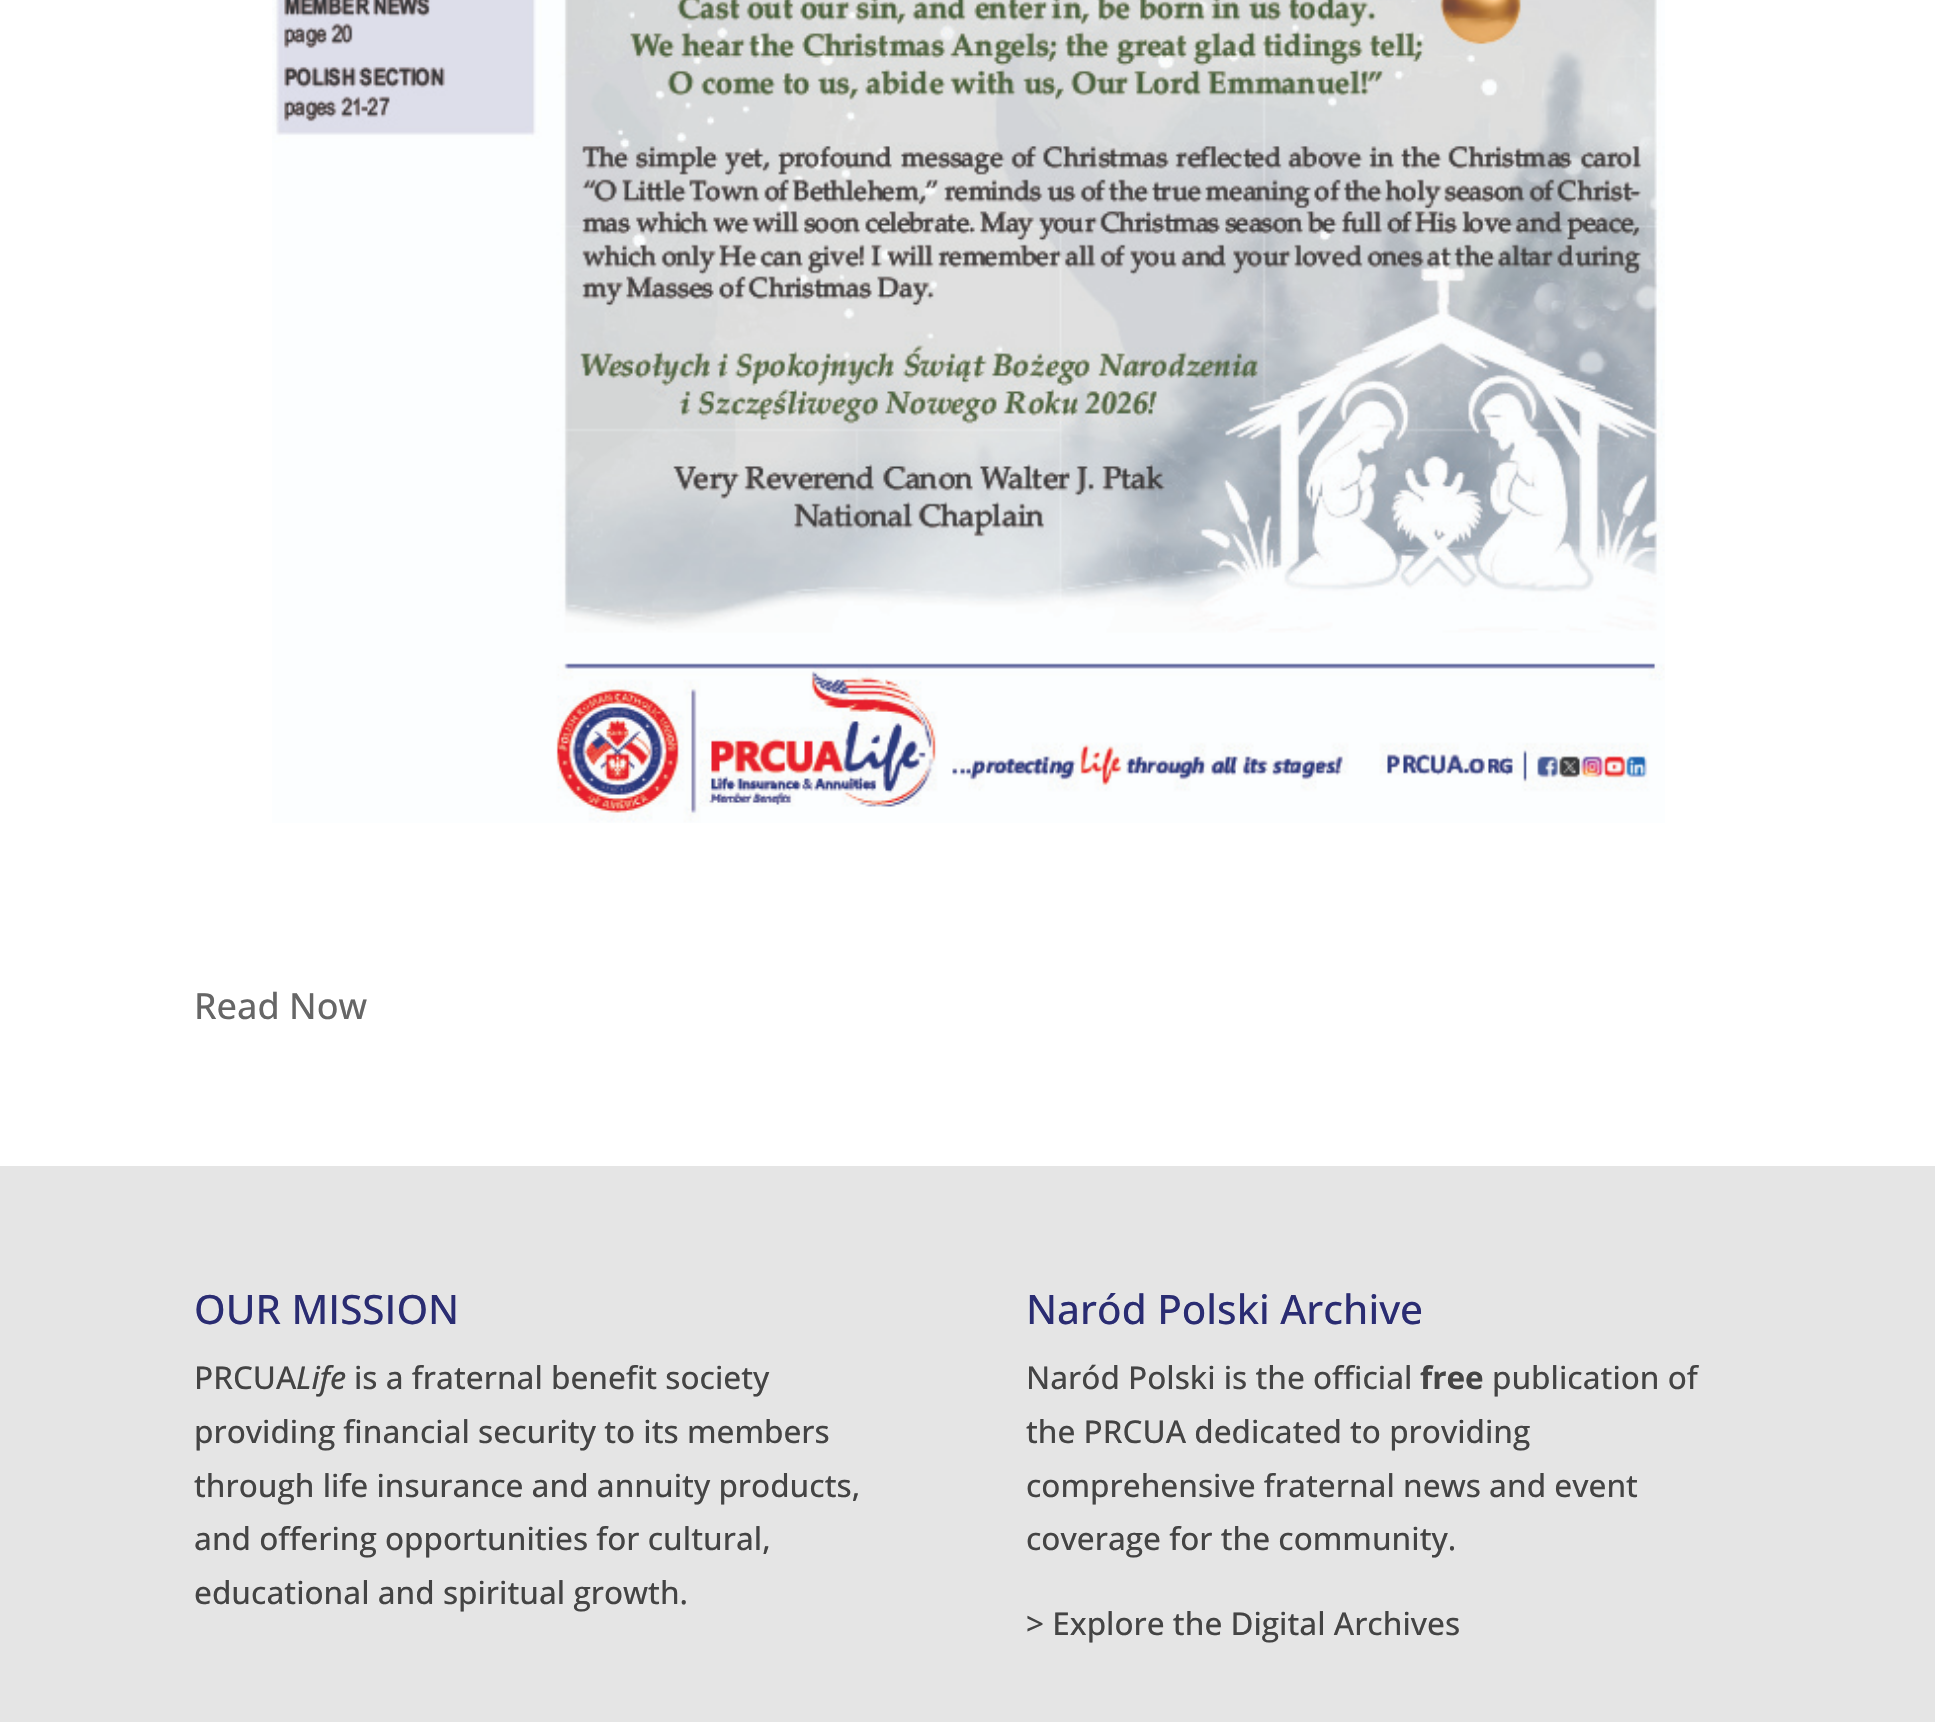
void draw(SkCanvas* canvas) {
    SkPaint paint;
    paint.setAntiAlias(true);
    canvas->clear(0xFFFFFFFF);
    canvas->drawImageRect(SkImages::DeferredFromEncodedData(SkData::MakeFromFileName("img1.png")), SkRect::MakeXYWH(272, 0, 1393, 823), SkSamplingOptions());
    SkFont font1(fontMgr->matchFamilyStyle("Open Sans", SkFontStyle(500, SkFontStyle::kNormal_Width, SkFontStyle::kUpright_Slant)), 36);
    font1.setSubpixel(true);
    paint.setColor(0xFF666666);
    canvas->drawString("Read Now", 194, 1019, font1, paint);
    paint.setColor(0xFFE5E5E5);
    canvas->drawRect(SkRect::MakeXYWH(0, 1166, 1935, 556), paint);
    SkFont font2(fontMgr->matchFamilyStyle("Open Sans", SkFontStyle(500, SkFontStyle::kNormal_Width, SkFontStyle::kUpright_Slant)), 40.5f);
    font2.setSubpixel(true);
    paint.setColor(0xFF2A2C72);
    canvas->drawString("OUR MISSION", 194, 1324, font2, paint);
    SkFont font3(fontMgr->matchFamilyStyle("Open Sans", SkFontStyle(500, SkFontStyle::kNormal_Width, SkFontStyle::kUpright_Slant)), 31.5f);
    font3.setSubpixel(true);
    paint.setColor(0xFF444444);
    canvas->drawString("PRCUA", 194, 1389, font3, paint);
    SkFont font4(fontMgr->matchFamilyStyle("Open Sans", SkFontStyle(500, SkFontStyle::kNormal_Width, SkFontStyle::kItalic_Slant)), 31.5f);
    font4.setSubpixel(true);
    canvas->drawString("Life", 296, 1389, font4, paint);
    canvas->drawString("is a fraternal benefit society", 354, 1389, font3, paint);
    canvas->drawString("providing financial security to its members", 194, 1443, font3, paint);
    canvas->drawString("through life insurance and annuity products,", 194, 1497, font3, paint);
    canvas->drawString("and offering opportunities for cultural,", 194, 1550, font3, paint);
    canvas->drawString("educational and spiritual growth.", 194, 1604, font3, paint);
    paint.setColor(0xFF2A2C72);
    canvas->drawString("Naród Polski Archive", 1026, 1324, font2, paint);
    paint.setColor(0xFF444444);
    canvas->drawString("Naród Polski is the official", 1026, 1389, font3, paint);
    SkFont font5(fontMgr->matchFamilyStyle("Open Sans", SkFontStyle::Bold()), 31.5f);
    font5.setSubpixel(true);
    canvas->drawString("free", 1420, 1389, font5, paint);
    canvas->drawString("publication of", 1492, 1389, font3, paint);
    canvas->drawString("the PRCUA dedicated to providing", 1026, 1443, font3, paint);
    canvas->drawString("comprehensive fraternal news and event", 1026, 1497, font3, paint);
    canvas->drawString("coverage for the community.", 1026, 1550, font3, paint);
    canvas->drawString("> Explore the Digital Archives", 1026, 1635, font3, paint);
}
